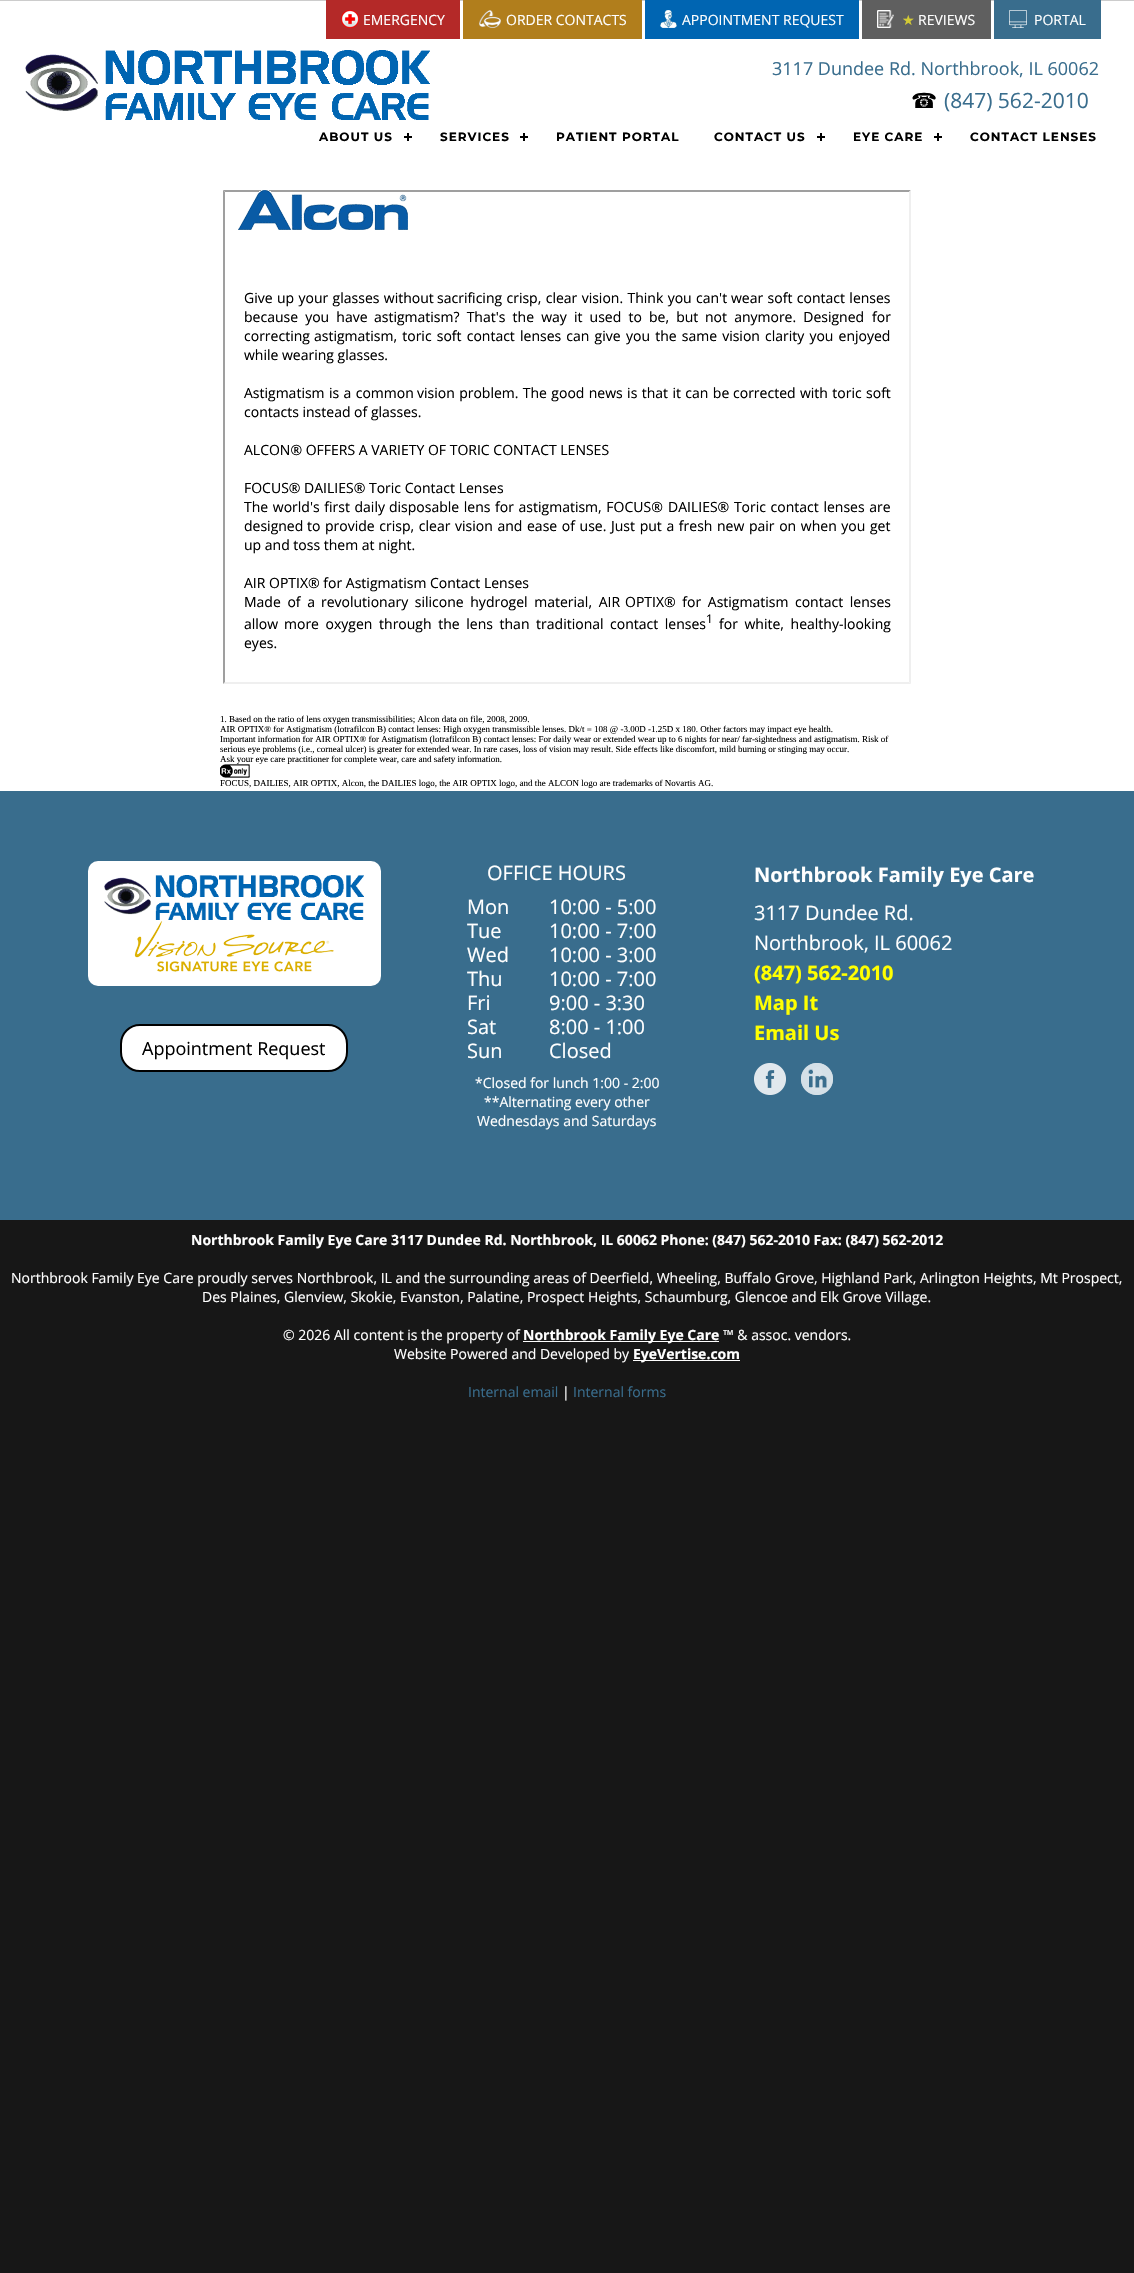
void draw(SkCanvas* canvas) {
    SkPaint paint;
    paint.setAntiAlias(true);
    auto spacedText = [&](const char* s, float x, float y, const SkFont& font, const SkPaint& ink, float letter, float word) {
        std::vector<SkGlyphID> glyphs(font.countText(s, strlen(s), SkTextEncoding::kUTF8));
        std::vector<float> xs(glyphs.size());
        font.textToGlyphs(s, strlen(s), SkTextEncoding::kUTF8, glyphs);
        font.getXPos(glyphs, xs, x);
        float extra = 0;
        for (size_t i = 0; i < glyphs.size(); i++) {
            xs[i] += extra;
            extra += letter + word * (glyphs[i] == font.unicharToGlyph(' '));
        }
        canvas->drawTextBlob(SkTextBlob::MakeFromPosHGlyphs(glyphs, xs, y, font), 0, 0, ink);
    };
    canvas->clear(0xFF171717);
    paint.setColor(0xFFFFFFFF);
    canvas->drawRect(SkRect::MakeXYWH(0, 1, 1134, 790), paint);
    paint.setColor(0xFFCCCCCC);
    canvas->drawRect(SkRect::MakeXYWH(0, 0, 1134, 1), paint);
    paint.setColor(0xFFB42928);
    canvas->drawRect(SkRect::MakeXYWH(326, 0, 134, 39), paint);
    canvas->drawImageRect(SkImages::DeferredFromEncodedData(SkData::MakeFromFileName("img1.png")), SkRect::MakeXYWH(341, 10, 18, 18), SkSamplingOptions());
    SkFont font1(fontMgr->matchFamilyStyle("Open Sans", SkFontStyle::Normal()), 14);
    font1.setSubpixel(true);
    paint.setColor(0xFFFFFFFF);
    canvas->drawString("EMERGENCY", 363, 25, font1, paint);
    paint.setColor(0xFFB17E1C);
    canvas->drawRect(SkRect::MakeXYWH(463, 0, 179, 39), paint);
    canvas->drawImageRect(SkImages::DeferredFromEncodedData(SkData::MakeFromFileName("img2.png")), SkRect::MakeXYWH(479, 10, 22, 18), SkSamplingOptions());
    paint.setColor(0xFFFFFFFF);
    canvas->drawString("ORDER CONTACTS", 506, 25, font1, paint);
    paint.setColor(0xFF0065B2);
    canvas->drawRect(SkRect::MakeXYWH(645, 0, 214, 39), paint);
    canvas->drawImageRect(SkImages::DeferredFromEncodedData(SkData::MakeFromFileName("img3.png")), SkRect::MakeXYWH(660, 10, 17, 18), SkSamplingOptions());
    paint.setColor(0xFFFFFFFF);
    canvas->drawString("APPOINTMENT REQUEST", 682, 25, font1, paint);
    paint.setColor(0xFF5F5F5F);
    canvas->drawRect(SkRect::MakeXYWH(862, 0, 129, 39), paint);
    canvas->drawImageRect(SkImages::DeferredFromEncodedData(SkData::MakeFromFileName("img4.png")), SkRect::MakeXYWH(877, 10, 17, 18), SkSamplingOptions());
    SkFont font2(fontMgr->matchFamilyStyle("DejaVu Sans", SkFontStyle::Normal()), 14);
    font2.setSubpixel(true);
    paint.setColor(0xFFD3CA35);
    canvas->drawString("★", 902, 25, font2, paint);
    paint.setColor(0xFFFFFFFF);
    canvas->drawString("REVIEWS", 918, 25, font1, paint);
    paint.setColor(0xFF396D8D);
    canvas->drawRect(SkRect::MakeXYWH(994, 0, 107, 39), paint);
    canvas->drawImageRect(SkImages::DeferredFromEncodedData(SkData::MakeFromFileName("img5.png")), SkRect::MakeXYWH(1009, 10, 18, 18), SkSamplingOptions());
    paint.setColor(0xFFFFFFFF);
    canvas->drawString("PORTAL", 1034, 25, font1, paint);
    canvas->drawImageRect(SkImages::DeferredFromEncodedData(SkData::MakeFromFileName("img6.png")), SkRect::MakeXYWH(25, 50, 405, 70), SkSamplingOptions());
    SkFont font3(fontMgr->matchFamilyStyle("Open Sans", SkFontStyle::Normal()), 18);
    font3.setSubpixel(true);
    paint.setColor(0xFF396D8D);
    canvas->drawString("3117 Dundee Rd. Northbrook, IL 60062", 772, 75, font3, paint);
    SkFont font4(fontMgr->matchFamilyStyle("DejaVu Sans", SkFontStyle::Normal()), 21);
    font4.setSubpixel(true);
    paint.setColor(0xFF000000);
    canvas->drawString("☎", 911, 108, font4, paint);
    SkFont font5(fontMgr->matchFamilyStyle("Open Sans", SkFontStyle::Normal()), 21);
    font5.setSubpixel(true);
    paint.setColor(0xFF396D8D);
    canvas->drawString("(847) 562-2010", 944, 108, font5, paint);
    SkFont font6(fontMgr->matchFamilyStyle("Montserrat", SkFontStyle::Bold()), 12);
    font6.setSubpixel(true);
    paint.setColor(0xFF000000);
    spacedText("ABOUT US", 319, 141, font6, paint, 1, 0);
    canvas->drawRect(SkRect::MakeXYWH(407, 133, 2, 8), paint);
    canvas->drawRect(SkRect::MakeXYWH(404, 136, 8, 2), paint);
    spacedText("SERVICES", 440, 141, font6, paint, 1, 0);
    canvas->drawRect(SkRect::MakeXYWH(523, 133, 2, 8), paint);
    canvas->drawRect(SkRect::MakeXYWH(520, 136, 8, 2), paint);
    spacedText("PATIENT PORTAL", 556, 141, font6, paint, 1, 0);
    spacedText("CONTACT US", 714, 141, font6, paint, 1, 0);
    canvas->drawRect(SkRect::MakeXYWH(820, 133, 2, 8), paint);
    canvas->drawRect(SkRect::MakeXYWH(817, 136, 8, 2), paint);
    spacedText("EYE CARE", 853, 141, font6, paint, 1, 0);
    canvas->drawRect(SkRect::MakeXYWH(937, 133, 2, 8), paint);
    canvas->drawRect(SkRect::MakeXYWH(934, 136, 8, 2), paint);
    spacedText("CONTACT LENSES", 970, 141, font6, paint, 1, 0);
    paint.setColor(0xFF9F9F9F);
    canvas->drawPath(SkPathBuilder().moveTo(223, 190).lineTo(911, 190).lineTo(909, 192).lineTo(225, 192).close().detach(), paint);
    paint.setColor(0xFFEFEFEF);
    canvas->drawPath(SkPathBuilder().moveTo(911, 190).lineTo(911, 684).lineTo(909, 682).lineTo(909, 192).close().detach(), paint);
    canvas->drawPath(SkPathBuilder().moveTo(911, 684).lineTo(223, 684).lineTo(225, 682).lineTo(909, 682).close().detach(), paint);
    paint.setColor(0xFF9F9F9F);
    canvas->drawPath(SkPathBuilder().moveTo(223, 684).lineTo(223, 190).lineTo(225, 192).lineTo(225, 682).close().detach(), paint);
    canvas->drawImageRect(SkImages::DeferredFromEncodedData(SkData::MakeFromFileName("img7.png")), SkRect::MakeXYWH(238, 190, 170, 40), SkSamplingOptions());
    paint.setColor(0xFF000000);
    spacedText("Give up your glasses without", 244, 303, font1, paint, 0, 0.75f);
    spacedText("sacrificing crisp, clear vision. Think you can't", 437, 303, font1, paint, 0, 0.75f);
    spacedText("wear soft contact lenses", 731, 303, font1, paint, 0, 0.75f);
    spacedText("because you have", 244, 322, font1, paint, 0, 3.5f);
    spacedText("astigmatism? That's the way it used to be, but", 374, 322, font1, paint, 0, 3.5f);
    spacedText("not anymore. Designed", 705, 322, font1, paint, 0, 3.5f);
    canvas->drawString("for", 872, 322, font1, paint);
    canvas->drawString("correcting", 244, 341, font1, paint);
    spacedText("astigmatism, toric soft contact lenses can give", 314, 341, font1, paint, 0, 1.5f);
    spacedText("you the same vision clarity you enjoyed", 626, 341, font1, paint, 0, 1.5f);
    canvas->drawString("while wearing glasses.", 244, 360, font1, paint);
    spacedText("Astigmatism is a common", 244, 398, font1, paint, 0, 0.75f);
    spacedText("vision problem. The good news is that it can be", 417, 398, font1, paint, 0, 0.75f);
    spacedText("corrected with toric soft", 733, 398, font1, paint, 0, 0.75f);
    canvas->drawString("contacts instead of glasses.", 244, 417, font1, paint);
    canvas->drawString("ALCON® OFFERS A VARIETY OF TORIC CONTACT LENSES", 244, 455, font1, paint);
    canvas->drawString("FOCUS® DAILIES® Toric Contact Lenses", 244, 493, font1, paint);
    spacedText("The world's first daily", 244, 512, font1, paint, 0, 1);
    spacedText("disposable lens for astigmatism, FOCUS®", 389, 512, font1, paint, 0, 1);
    spacedText("DAILIES® Toric contact lenses are", 668, 512, font1, paint, 0, 1);
    canvas->drawString("designed", 244, 531, font1, paint);
    spacedText("to provide crisp, clear vision and ease of use.", 307, 531, font1, paint, 0, 1);
    spacedText("Just put a fresh new pair on when you get", 611, 531, font1, paint, 0, 1);
    canvas->drawString("up and toss them at night.", 244, 550, font1, paint);
    canvas->drawString("AIR OPTIX® for Astigmatism Contact Lenses", 244, 588, font1, paint);
    spacedText("Made of a", 244, 607, font1, paint, 0, 3);
    spacedText("revolutionary silicone hydrogel material, AIR", 321, 607, font1, paint, 0, 3);
    spacedText("OPTIX® for Astigmatism contact lenses", 625, 607, font1, paint, 0, 3);
    canvas->drawString("allow", 244, 629, font1, paint);
    spacedText("more oxygen through the lens than traditional", 284, 629, font1, paint, 0, 3);
    spacedText("contact lenses", 610, 629, font1, paint, 0, 3);
    SkFont font7(fontMgr->matchFamilyStyle("Open Sans", SkFontStyle::Normal()), 12);
    font7.setSubpixel(true);
    canvas->drawString("1", 706, 623, font7, paint);
    spacedText("for white, healthy-looking", 719, 629, font1, paint, 0, 3);
    canvas->drawString("eyes.", 244, 648, font1, paint);
    SkFont font8(fontMgr->matchFamilyStyle("Liberation Serif", SkFontStyle::Normal()), 9);
    font8.setSubpixel(true);
    canvas->drawString("1. Based on the ratio of lens oxygen transmissibilities; Alcon data on file, 2008, 2009.", 220, 722, font8, paint);
    canvas->drawString("AIR OPTIX® for Astigmatism (lotrafilcon B) contact lenses: High oxygen transmissible lenses. Dk/t = 108 @ -3.00D -1.25D x 180. Other factors may impact eye health.", 220, 732, font8, paint);
    canvas->drawString("Important information for AIR OPTIX® for Astigmatism (lotrafilcon B) contact lenses: For daily wear or extended wear up to 6 nights for near/ far-sightedness and astigmatism. Risk of", 220, 742, font8, paint);
    canvas->drawString("serious eye problems (i.e., corneal ulcer) is greater for extended wear. In rare cases, loss of vision may result. Side effects like discomfort, mild burning or stinging may occur.", 220, 752, font8, paint);
    canvas->drawString("Ask your eye care practitioner for complete wear, care and safety information.", 220, 762, font8, paint);
    canvas->drawImageRect(SkImages::DeferredFromEncodedData(SkData::MakeFromFileName("img8.png")), SkRect::MakeXYWH(220, 764, 30, 14), SkSamplingOptions());
    canvas->drawString("FOCUS, DAILIES, AIR OPTIX, Alcon, the DAILIES logo, the AIR OPTIX logo, and the ALCON logo are trademarks of Novartis AG.", 220, 786, font8, paint);
    paint.setColor(0xFF396D8D);
    canvas->drawRect(SkRect::MakeXYWH(0, 791, 1134, 429), paint);
    SkFont font9(fontMgr->matchFamilyStyle("Open Sans", SkFontStyle::Normal()), 20);
    font9.setSubpixel(true);
    paint.setColor(0xFFFFFFFF);
    canvas->drawString("OFFICE HOURS", 487, 880, font9, paint);
    canvas->drawString("Mon", 467, 914, font9, paint);
    canvas->drawString("10:00 - 5:00", 549, 914, font9, paint);
    canvas->drawString("Tue", 467, 938, font9, paint);
    canvas->drawString("10:00 - 7:00", 549, 938, font9, paint);
    canvas->drawString("Wed", 467, 962, font9, paint);
    canvas->drawString("10:00 - 3:00", 549, 962, font9, paint);
    canvas->drawString("Thu", 467, 986, font9, paint);
    canvas->drawString("10:00 - 7:00", 549, 986, font9, paint);
    canvas->drawString("Fri", 467, 1010, font9, paint);
    canvas->drawString("9:00 - 3:30", 549, 1010, font9, paint);
    canvas->drawString("Sat", 467, 1034, font9, paint);
    canvas->drawString("8:00 - 1:00", 549, 1034, font9, paint);
    canvas->drawString("Sun", 467, 1058, font9, paint);
    canvas->drawString("Closed", 549, 1058, font9, paint);
    canvas->drawString("*Closed for lunch 1:00 - 2:00", 475, 1088, font1, paint);
    canvas->drawString("**Alternating every other", 484, 1107, font1, paint);
    canvas->drawString("Wednesdays and Saturdays", 477, 1126, font1, paint);
    SkFont font10(fontMgr->matchFamilyStyle("Open Sans", SkFontStyle::Bold()), 20);
    font10.setSubpixel(true);
    canvas->drawString("Northbrook Family Eye Care", 754, 882, font10, paint);
    canvas->drawString("3117 Dundee Rd.", 754, 920, font9, paint);
    canvas->drawString("Northbrook, IL 60062", 754, 950, font9, paint);
    paint.setColor(0xFFFFFF00);
    canvas->drawString("(847) 562-2010", 754, 980, font10, paint);
    canvas->drawString("Map It", 754, 1010, font10, paint);
    canvas->drawString("Email Us", 754, 1040, font10, paint);
    canvas->drawImageRect(SkImages::DeferredFromEncodedData(SkData::MakeFromFileName("img9.png")), SkRect::MakeXYWH(754, 1063, 32, 32), SkSamplingOptions());
    canvas->drawImageRect(SkImages::DeferredFromEncodedData(SkData::MakeFromFileName("img10.png")), SkRect::MakeXYWH(801, 1063, 32, 32), SkSamplingOptions());
    paint.setColor(0xFFFFFFFF);
    canvas->drawRoundRect(SkRect::MakeXYWH(88, 861, 293, 125), 10, 10, paint);
    canvas->drawImageRect(SkImages::DeferredFromEncodedData(SkData::MakeFromFileName("img11.png")), SkRect::MakeXYWH(104, 875, 260, 45), SkSamplingOptions());
    canvas->drawImageRect(SkImages::DeferredFromEncodedData(SkData::MakeFromFileName("img12.png")), SkRect::MakeXYWH(134, 921, 200, 51), SkSamplingOptions());
    canvas->drawRoundRect(SkRect::MakeXYWH(121, 1025, 226, 46), 19, 19, paint);
    paint.setStyle(SkPaint::kStroke_Style);
    paint.setStrokeWidth(2);
    paint.setColor(0xFF000000);
    canvas->drawRoundRect(SkRect::MakeXYWH(121, 1025, 226, 46), 19, 19, paint);
    paint.setStyle(SkPaint::kFill_Style);
    canvas->drawString("Appointment Request", 142, 1055, font3, paint);
    SkFont font11(fontMgr->matchFamilyStyle("Open Sans", SkFontStyle::Bold()), 14);
    font11.setSubpixel(true);
    paint.setColor(0xFFFFFFFF);
    canvas->drawString("Northbrook Family Eye Care 3117 Dundee Rd. Northbrook, IL 60062 Phone: (847) 562-2010 Fax: (847) 562-2012", 191, 1245, font11, paint);
    canvas->drawString("Northbrook Family Eye Care proudly serves Northbrook, IL and the surrounding areas of Deerfield, Wheeling, Buffalo Grove, Highland Park, Arlington Heights, Mt Prospect,", 11, 1283, font1, paint);
    canvas->drawString("Des Plaines, Glenview, Skokie, Evanston, Palatine, Prospect Heights, Schaumburg, Glencoe and Elk Grove Village.", 202, 1302, font1, paint);
    canvas->drawString("© 2026 All content is the property of", 283, 1340, font1, paint);
    canvas->drawRect(SkRect::MakeXYWH(523, 1341, 196, 1), paint);
    canvas->drawString("Northbrook Family Eye Care", 523, 1340, font11, paint);
    canvas->drawString("™ & assoc. vendors.", 723, 1340, font1, paint);
    canvas->drawString("Website Powered and Developed by", 394, 1359, font1, paint);
    canvas->drawRect(SkRect::MakeXYWH(633, 1360, 107, 1), paint);
    canvas->drawString("EyeVertise.com", 633, 1359, font11, paint);
    paint.setColor(0xFF396D8D);
    canvas->drawString("Internal email", 468, 1397, font1, paint);
    paint.setColor(0xFFFFFFFF);
    canvas->drawString("|", 562, 1397, font1, paint);
    paint.setColor(0xFF396D8D);
    canvas->drawString("Internal forms", 573, 1397, font1, paint);
}
